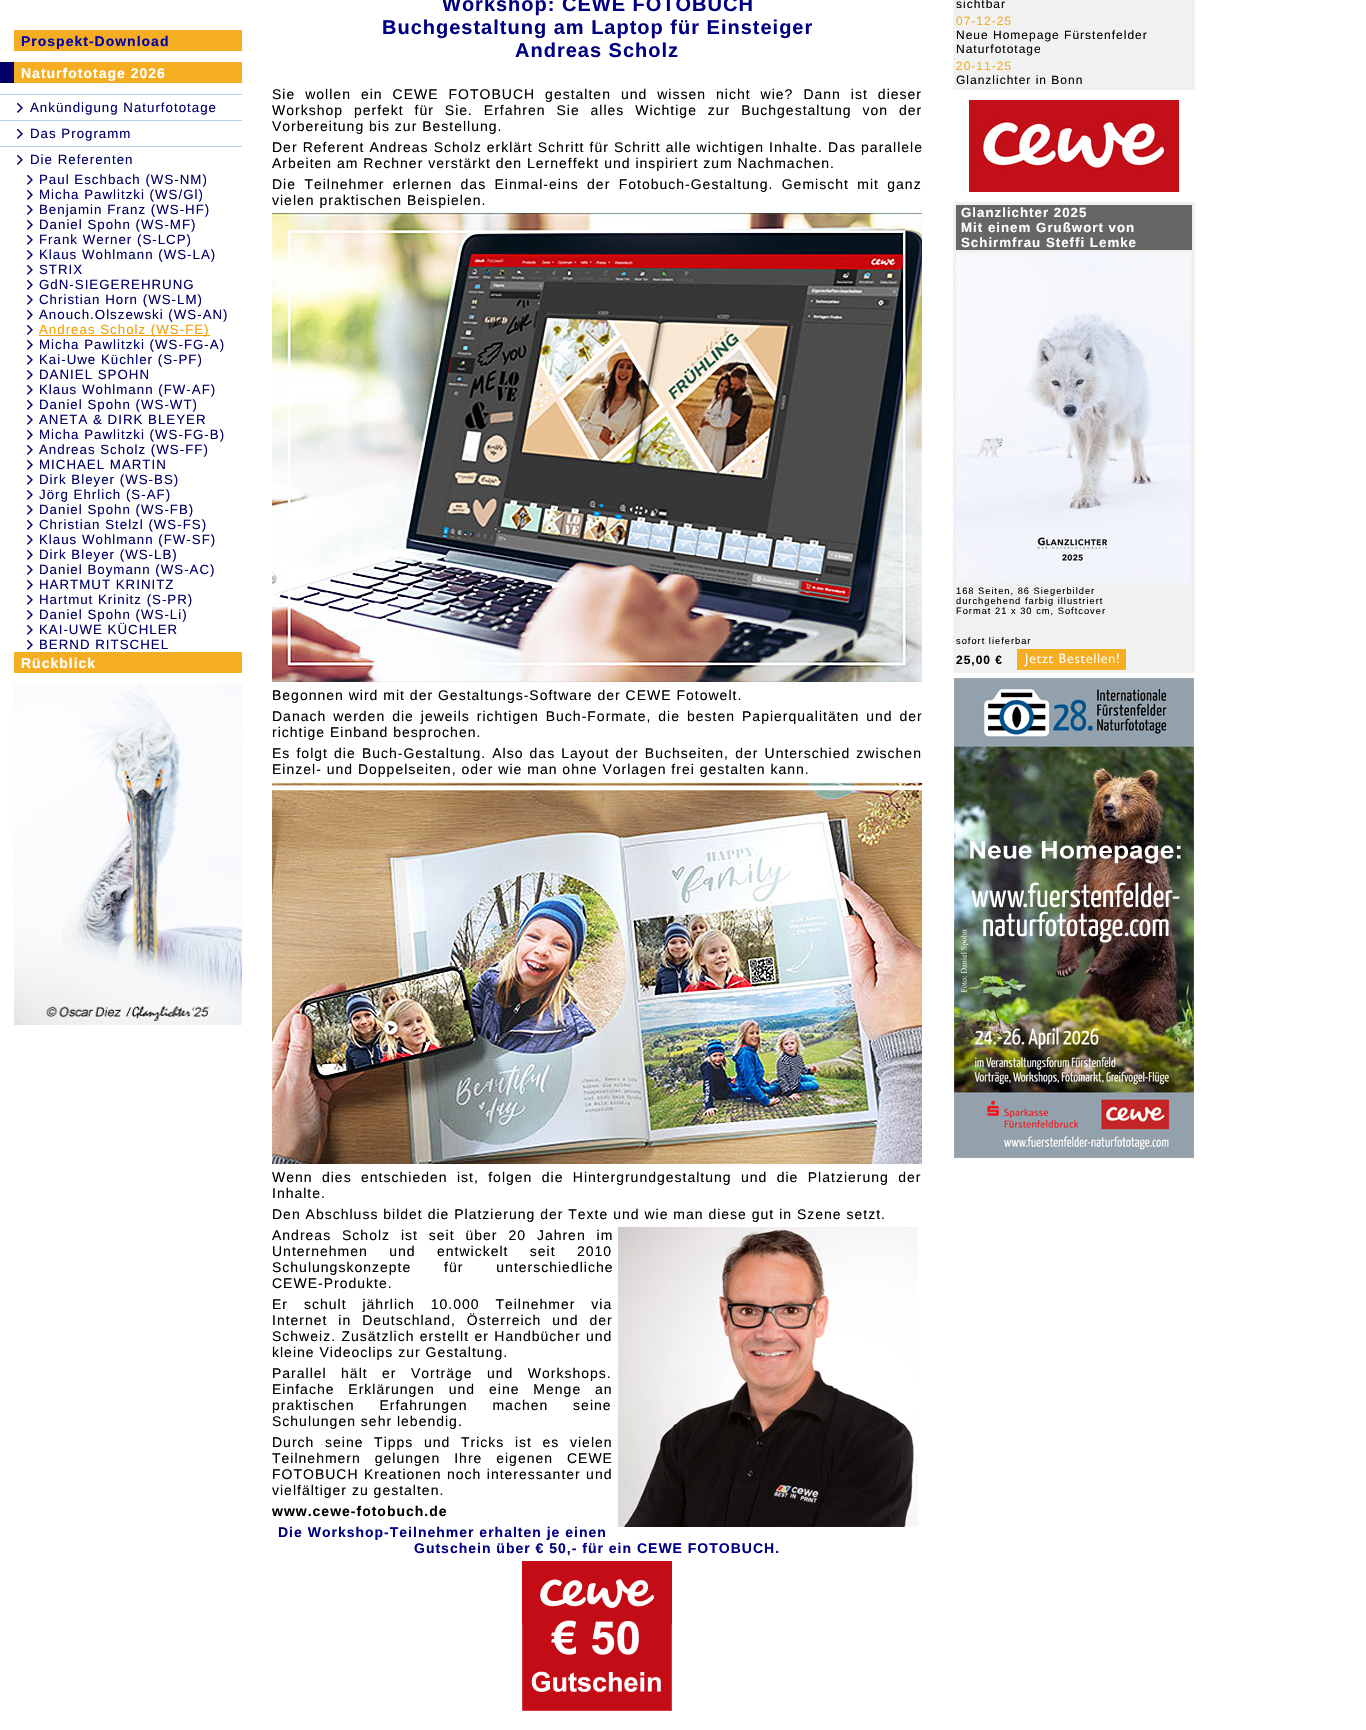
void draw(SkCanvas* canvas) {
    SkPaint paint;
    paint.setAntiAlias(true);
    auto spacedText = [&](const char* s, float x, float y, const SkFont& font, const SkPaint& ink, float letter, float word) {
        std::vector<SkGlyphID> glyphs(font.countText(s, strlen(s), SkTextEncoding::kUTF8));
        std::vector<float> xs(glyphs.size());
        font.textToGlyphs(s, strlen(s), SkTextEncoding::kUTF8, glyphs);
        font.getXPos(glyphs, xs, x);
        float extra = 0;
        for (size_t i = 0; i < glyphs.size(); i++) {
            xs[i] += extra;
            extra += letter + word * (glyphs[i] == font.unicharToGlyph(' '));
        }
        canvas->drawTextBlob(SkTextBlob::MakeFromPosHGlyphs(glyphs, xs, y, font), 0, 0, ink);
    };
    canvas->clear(0xFFFFFFFF);
    paint.setColor(0xFFF5AE22);
    canvas->drawRect(SkRect::MakeXYWH(14, 30, 228, 21), paint);
    SkFont font1(fontMgr->matchFamilyStyle("Liberation Sans", SkFontStyle::Bold()), 14);
    font1.setSubpixel(true);
    paint.setColor(0xFF0000AA);
    spacedText("Prospekt-Download", 21, 46, font1, paint, 1, 0);
    paint.setColor(0xFF000066);
    canvas->drawRect(SkRect::MakeXYWH(0, 62, 14, 21), paint);
    paint.setColor(0xFFF5AE22);
    canvas->drawRect(SkRect::MakeXYWH(14, 62, 228, 21), paint);
    paint.setColor(0xFFFFFFFF);
    spacedText("Naturfototage 2026", 21, 78, font1, paint, 1, 0);
    paint.setColor(0xFFB6CFE7);
    canvas->drawRect(SkRect::MakeXYWH(0, 94, 242, 1), paint);
    canvas->drawImageRect(SkImages::DeferredFromEncodedData(SkData::MakeFromFileName("img1.png")), SkRect::MakeXYWH(17, 103, 6, 10), SkSamplingOptions());
    SkFont font2(fontMgr->matchFamilyStyle("Liberation Sans", SkFontStyle::Normal()), 13.3f);
    font2.setSubpixel(true);
    paint.setColor(0xFF000066);
    spacedText("Ankündigung Naturfototage", 30, 112, font2, paint, 1, 0);
    paint.setColor(0xFFB6CFE7);
    canvas->drawRect(SkRect::MakeXYWH(0, 120, 242, 1), paint);
    canvas->drawImageRect(SkImages::DeferredFromEncodedData(SkData::MakeFromFileName("img1.png")), SkRect::MakeXYWH(17, 129, 6, 10), SkSamplingOptions());
    paint.setColor(0xFF000066);
    spacedText("Das Programm", 30, 138, font2, paint, 1, 0);
    paint.setColor(0xFFB6CFE7);
    canvas->drawRect(SkRect::MakeXYWH(0, 146, 242, 1), paint);
    canvas->drawImageRect(SkImages::DeferredFromEncodedData(SkData::MakeFromFileName("img1.png")), SkRect::MakeXYWH(17, 155, 6, 10), SkSamplingOptions());
    paint.setColor(0xFF000066);
    spacedText("Die Referenten", 30, 164, font2, paint, 1, 0);
    canvas->drawImageRect(SkImages::DeferredFromEncodedData(SkData::MakeFromFileName("img1.png")), SkRect::MakeXYWH(27, 175, 6, 10), SkSamplingOptions());
    spacedText("Paul Eschbach (WS-NM)", 39, 184, font2, paint, 1, 0);
    canvas->drawImageRect(SkImages::DeferredFromEncodedData(SkData::MakeFromFileName("img1.png")), SkRect::MakeXYWH(27, 190, 6, 10), SkSamplingOptions());
    spacedText("Micha Pawlitzki (WS/Gl)", 39, 199, font2, paint, 1, 0);
    canvas->drawImageRect(SkImages::DeferredFromEncodedData(SkData::MakeFromFileName("img1.png")), SkRect::MakeXYWH(27, 205, 6, 10), SkSamplingOptions());
    spacedText("Benjamin Franz (WS-HF)", 39, 214, font2, paint, 1, 0);
    canvas->drawImageRect(SkImages::DeferredFromEncodedData(SkData::MakeFromFileName("img1.png")), SkRect::MakeXYWH(27, 220, 6, 10), SkSamplingOptions());
    spacedText("Daniel Spohn (WS-MF)", 39, 229, font2, paint, 1, 0);
    canvas->drawImageRect(SkImages::DeferredFromEncodedData(SkData::MakeFromFileName("img1.png")), SkRect::MakeXYWH(27, 235, 6, 10), SkSamplingOptions());
    spacedText("Frank Werner (S-LCP)", 39, 244, font2, paint, 1, 0);
    canvas->drawImageRect(SkImages::DeferredFromEncodedData(SkData::MakeFromFileName("img1.png")), SkRect::MakeXYWH(27, 250, 6, 10), SkSamplingOptions());
    spacedText("Klaus Wohlmann (WS-LA)", 39, 259, font2, paint, 1, 0);
    canvas->drawImageRect(SkImages::DeferredFromEncodedData(SkData::MakeFromFileName("img1.png")), SkRect::MakeXYWH(27, 265, 6, 10), SkSamplingOptions());
    spacedText("STRIX", 39, 274, font2, paint, 1, 0);
    canvas->drawImageRect(SkImages::DeferredFromEncodedData(SkData::MakeFromFileName("img1.png")), SkRect::MakeXYWH(27, 280, 6, 10), SkSamplingOptions());
    spacedText("GdN-SIEGEREHRUNG", 39, 289, font2, paint, 1, 0);
    canvas->drawImageRect(SkImages::DeferredFromEncodedData(SkData::MakeFromFileName("img1.png")), SkRect::MakeXYWH(27, 295, 6, 10), SkSamplingOptions());
    spacedText("Christian Horn (WS-LM)", 39, 304, font2, paint, 1, 0);
    canvas->drawImageRect(SkImages::DeferredFromEncodedData(SkData::MakeFromFileName("img1.png")), SkRect::MakeXYWH(27, 310, 6, 10), SkSamplingOptions());
    spacedText("Anouch.Olszewski (WS-AN)", 39, 319, font2, paint, 1, 0);
    canvas->drawImageRect(SkImages::DeferredFromEncodedData(SkData::MakeFromFileName("img1.png")), SkRect::MakeXYWH(27, 325, 6, 10), SkSamplingOptions());
    paint.setColor(0xFFF4A004);
    canvas->drawRect(SkRect::MakeXYWH(39, 335, 171, 1), paint);
    spacedText("Andreas Scholz (WS-FE)", 39, 334, font2, paint, 1, 0);
    canvas->drawImageRect(SkImages::DeferredFromEncodedData(SkData::MakeFromFileName("img1.png")), SkRect::MakeXYWH(27, 340, 6, 10), SkSamplingOptions());
    paint.setColor(0xFF000066);
    spacedText("Micha Pawlitzki (WS-FG-A)", 39, 349, font2, paint, 1, 0);
    canvas->drawImageRect(SkImages::DeferredFromEncodedData(SkData::MakeFromFileName("img1.png")), SkRect::MakeXYWH(27, 355, 6, 10), SkSamplingOptions());
    spacedText("Kai-Uwe Küchler (S-PF)", 39, 364, font2, paint, 1, 0);
    canvas->drawImageRect(SkImages::DeferredFromEncodedData(SkData::MakeFromFileName("img1.png")), SkRect::MakeXYWH(27, 370, 6, 10), SkSamplingOptions());
    spacedText("DANIEL SPOHN", 39, 379, font2, paint, 1, 0);
    canvas->drawImageRect(SkImages::DeferredFromEncodedData(SkData::MakeFromFileName("img1.png")), SkRect::MakeXYWH(27, 385, 6, 10), SkSamplingOptions());
    spacedText("Klaus Wohlmann (FW-AF)", 39, 394, font2, paint, 1, 0);
    canvas->drawImageRect(SkImages::DeferredFromEncodedData(SkData::MakeFromFileName("img1.png")), SkRect::MakeXYWH(27, 400, 6, 10), SkSamplingOptions());
    spacedText("Daniel Spohn (WS-WT)", 39, 409, font2, paint, 1, 0);
    canvas->drawImageRect(SkImages::DeferredFromEncodedData(SkData::MakeFromFileName("img1.png")), SkRect::MakeXYWH(27, 415, 6, 10), SkSamplingOptions());
    spacedText("ANETA & DIRK BLEYER", 39, 424, font2, paint, 1, 0);
    canvas->drawImageRect(SkImages::DeferredFromEncodedData(SkData::MakeFromFileName("img1.png")), SkRect::MakeXYWH(27, 430, 6, 10), SkSamplingOptions());
    spacedText("Micha Pawlitzki (WS-FG-B)", 39, 439, font2, paint, 1, 0);
    canvas->drawImageRect(SkImages::DeferredFromEncodedData(SkData::MakeFromFileName("img1.png")), SkRect::MakeXYWH(27, 445, 6, 10), SkSamplingOptions());
    spacedText("Andreas Scholz (WS-FF)", 39, 454, font2, paint, 1, 0);
    canvas->drawImageRect(SkImages::DeferredFromEncodedData(SkData::MakeFromFileName("img1.png")), SkRect::MakeXYWH(27, 460, 6, 10), SkSamplingOptions());
    spacedText("MICHAEL MARTIN", 39, 469, font2, paint, 1, 0);
    canvas->drawImageRect(SkImages::DeferredFromEncodedData(SkData::MakeFromFileName("img1.png")), SkRect::MakeXYWH(27, 475, 6, 10), SkSamplingOptions());
    spacedText("Dirk Bleyer (WS-BS)", 39, 484, font2, paint, 1, 0);
    canvas->drawImageRect(SkImages::DeferredFromEncodedData(SkData::MakeFromFileName("img1.png")), SkRect::MakeXYWH(27, 490, 6, 10), SkSamplingOptions());
    spacedText("Jörg Ehrlich (S-AF)", 39, 499, font2, paint, 1, 0);
    canvas->drawImageRect(SkImages::DeferredFromEncodedData(SkData::MakeFromFileName("img1.png")), SkRect::MakeXYWH(27, 505, 6, 10), SkSamplingOptions());
    spacedText("Daniel Spohn (WS-FB)", 39, 514, font2, paint, 1, 0);
    canvas->drawImageRect(SkImages::DeferredFromEncodedData(SkData::MakeFromFileName("img1.png")), SkRect::MakeXYWH(27, 520, 6, 10), SkSamplingOptions());
    spacedText("Christian Stelzl (WS-FS)", 39, 529, font2, paint, 1, 0);
    canvas->drawImageRect(SkImages::DeferredFromEncodedData(SkData::MakeFromFileName("img1.png")), SkRect::MakeXYWH(27, 535, 6, 10), SkSamplingOptions());
    spacedText("Klaus Wohlmann (FW-SF)", 39, 544, font2, paint, 1, 0);
    canvas->drawImageRect(SkImages::DeferredFromEncodedData(SkData::MakeFromFileName("img1.png")), SkRect::MakeXYWH(27, 550, 6, 10), SkSamplingOptions());
    spacedText("Dirk Bleyer (WS-LB)", 39, 559, font2, paint, 1, 0);
    canvas->drawImageRect(SkImages::DeferredFromEncodedData(SkData::MakeFromFileName("img1.png")), SkRect::MakeXYWH(27, 565, 6, 10), SkSamplingOptions());
    spacedText("Daniel Boymann (WS-AC)", 39, 574, font2, paint, 1, 0);
    canvas->drawImageRect(SkImages::DeferredFromEncodedData(SkData::MakeFromFileName("img1.png")), SkRect::MakeXYWH(27, 580, 6, 10), SkSamplingOptions());
    spacedText("HARTMUT KRINITZ", 39, 589, font2, paint, 1, 0);
    canvas->drawImageRect(SkImages::DeferredFromEncodedData(SkData::MakeFromFileName("img1.png")), SkRect::MakeXYWH(27, 595, 6, 10), SkSamplingOptions());
    spacedText("Hartmut Krinitz (S-PR)", 39, 604, font2, paint, 1, 0);
    canvas->drawImageRect(SkImages::DeferredFromEncodedData(SkData::MakeFromFileName("img1.png")), SkRect::MakeXYWH(27, 610, 6, 10), SkSamplingOptions());
    spacedText("Daniel Spohn (WS-Li)", 39, 619, font2, paint, 1, 0);
    canvas->drawImageRect(SkImages::DeferredFromEncodedData(SkData::MakeFromFileName("img1.png")), SkRect::MakeXYWH(27, 625, 6, 10), SkSamplingOptions());
    spacedText("KAI-UWE KÜCHLER", 39, 634, font2, paint, 1, 0);
    canvas->drawImageRect(SkImages::DeferredFromEncodedData(SkData::MakeFromFileName("img1.png")), SkRect::MakeXYWH(27, 640, 6, 10), SkSamplingOptions());
    spacedText("BERND RITSCHEL", 39, 649, font2, paint, 1, 0);
    paint.setColor(0xFFF5AE22);
    canvas->drawRect(SkRect::MakeXYWH(14, 652, 228, 21), paint);
    paint.setColor(0xFFFFFFFF);
    spacedText("Rückblick", 21, 668, font1, paint, 1, 0);
    canvas->drawImageRect(SkImages::DeferredFromEncodedData(SkData::MakeFromFileName("img2.png")), SkRect::MakeXYWH(14, 684, 228, 341), SkSamplingOptions());
    SkFont font3(fontMgr->matchFamilyStyle("Liberation Sans", SkFontStyle::Bold()), 20);
    font3.setSubpixel(true);
    paint.setColor(0xFF000080);
    spacedText("Workshop: CEWE FOTOBUCH", 442, 11, font3, paint, 1, 0);
    spacedText("Buchgestaltung am Laptop für Einsteiger", 382, 34, font3, paint, 1, 0);
    spacedText("Andreas Scholz", 515, 57, font3, paint, 1, 0);
    SkFont font4(fontMgr->matchFamilyStyle("Liberation Sans", SkFontStyle::Normal()), 14);
    font4.setSubpixel(true);
    paint.setColor(0xFF000000);
    spacedText("Sie wollen ein CEWE FOTOBUCH gestalten und wissen nicht wie? Dann ist dieser", 272, 99, font4, paint, 1, 5.1f);
    spacedText("Workshop perfekt für Sie. Erfahren Sie alles Wichtige zur Buchgestaltung von der", 272, 115, font4, paint, 1, 6);
    spacedText("Vorbereitung bis zur Bestellung.", 272, 131, font4, paint, 1, 0);
    spacedText("Der Referent Andreas Scholz erklärt Schritt für Schritt alle wichtigen Inhalte. Das parallele", 272, 152, font4, paint, 1, 0.2f);
    spacedText("Arbeiten am Rechner verstärkt den Lerneffekt und inspiriert zum Nachmachen.", 272, 168, font4, paint, 1, 0);
    spacedText("Die Teilnehmer erlernen das Einmal-eins der Fotobuch-Gestaltung. Gemischt mit ganz", 272, 189, font4, paint, 1, 3.5f);
    spacedText("vielen praktischen Beispielen.", 272, 205, font4, paint, 1, 0);
    canvas->drawImageRect(SkImages::DeferredFromEncodedData(SkData::MakeFromFileName("img3.png")), SkRect::MakeXYWH(272, 213, 650, 469), SkSamplingOptions());
    spacedText("Begonnen wird mit der Gestaltungs-Software der CEWE Fotowelt.", 272, 700, font4, paint, 1, 0);
    spacedText("Danach werden die jeweils richtigen Buch-Formate, die besten Papierqualitäten und der", 272, 721, font4, paint, 1, 2.1f);
    spacedText("richtige Einband besprochen.", 272, 737, font4, paint, 1, 0);
    spacedText("Es folgt die Buch-Gestaltung. Also das Layout der Buchseiten, der Unterschied zwischen", 272, 758, font4, paint, 1, 1.25f);
    spacedText("Einzel- und Doppelseiten, oder wie man ohne Vorlagen frei gestalten kann.", 272, 774, font4, paint, 1, 0);
    canvas->drawImageRect(SkImages::DeferredFromEncodedData(SkData::MakeFromFileName("img4.png")), SkRect::MakeXYWH(272, 782, 650, 382), SkSamplingOptions());
    spacedText("Wenn dies entschieden ist, folgen die Hintergrundgestaltung und die Platzierung der", 272, 1182, font4, paint, 1, 4.5f);
    spacedText("Inhalte.", 272, 1198, font4, paint, 1, 0);
    spacedText("Den Abschluss bildet die Platzierung der Texte und wie man diese gut in Szene setzt.", 272, 1219, font4, paint, 1, 0);
    spacedText("Andreas Scholz ist seit über 20 Jahren im", 272, 1240, font4, paint, 1, 6);
    canvas->drawImageRect(SkImages::DeferredFromEncodedData(SkData::MakeFromFileName("img5.png")), SkRect::MakeXYWH(618, 1227, 300, 300), SkSamplingOptions());
    spacedText("Unternehmen und entwickelt seit 2010", 272, 1256, font4, paint, 1, 16.5f);
    spacedText("Schulungskonzepte für unterschiedliche", 272, 1272, font4, paint, 1, 28);
    spacedText("CEWE-Produkte.", 272, 1288, font4, paint, 1, 0);
    spacedText("Er", 272, 1309, font4, paint, 1, 0);
    spacedText("schult jährlich 10.000 Teilnehmer via", 304, 1309, font4, paint, 1, 11);
    spacedText("Internet in Deutschland, Österreich und der", 272, 1325, font4, paint, 1, 6);
    spacedText("Schweiz. Zusätzlich erstellt er Handbücher und", 272, 1341, font4, paint, 1, 0.5f);
    spacedText("kleine Videoclips zur Gestaltung.", 272, 1357, font4, paint, 1, 0);
    spacedText("Parallel hält er Vorträge und Workshops.", 272, 1378, font4, paint, 1, 9.5f);
    spacedText("Einfache Erklärungen und eine Menge an", 272, 1394, font4, paint, 1, 9);
    spacedText("praktischen Erfahrungen machen seine", 272, 1410, font4, paint, 1, 20);
    spacedText("Schulungen sehr lebendig.", 272, 1426, font4, paint, 1, 0);
    spacedText("Durch seine Tipps und Tricks ist es vielen", 272, 1447, font4, paint, 1, 5.75f);
    spacedText("Teilnehmern gelungen Ihre eigenen CEWE", 272, 1463, font4, paint, 1, 9);
    spacedText("FOTOBUCH Kreationen noch interessanter und", 272, 1479, font4, paint, 1, 0.5f);
    spacedText("vielfältiger zu gestalten.", 272, 1495, font4, paint, 1, 0);
    spacedText("www.cewe-fotobuch.de", 272, 1516, font1, paint, 1, 0);
    paint.setColor(0xFF000080);
    spacedText("Die Workshop-Teilnehmer erhalten je einen", 278, 1537, font1, paint, 1, 0);
    spacedText("Gutschein über € 50,- für ein CEWE FOTOBUCH.", 414, 1553, font1, paint, 1, 0);
    canvas->drawImageRect(SkImages::DeferredFromEncodedData(SkData::MakeFromFileName("img6.png")), SkRect::MakeXYWH(522, 1561, 150, 150), SkSamplingOptions());
    paint.setColor(0xFFF1F1F1);
    canvas->drawRect(SkRect::MakeXYWH(953, 0, 242, 90), paint);
    SkFont font5(fontMgr->matchFamilyStyle("Liberation Sans", SkFontStyle::Normal()), 12);
    font5.setSubpixel(true);
    paint.setColor(0xFF000000);
    spacedText("sichtbar", 956, 8, font5, paint, 1, 0);
    paint.setColor(0xFFF5AE22);
    spacedText("07-12-25", 956, 25, font5, paint, 1, 0);
    paint.setColor(0xFF000000);
    spacedText("Neue Homepage Fürstenfelder", 956, 39, font5, paint, 1, 0);
    spacedText("Naturfototage", 956, 53, font5, paint, 1, 0);
    paint.setColor(0xFFF5AE22);
    spacedText("20-11-25", 956, 70, font5, paint, 1, 0);
    paint.setColor(0xFF000000);
    spacedText("Glanzlichter in Bonn", 956, 84, font5, paint, 1, 0);
    canvas->drawImageRect(SkImages::DeferredFromEncodedData(SkData::MakeFromFileName("img7.png")), SkRect::MakeXYWH(969, 100, 210, 92), SkSamplingOptions());
    paint.setColor(0xFFF1F1F1);
    canvas->drawRect(SkRect::MakeXYWH(953, 202, 242, 471), paint);
    paint.setColor(0xFF666666);
    canvas->drawRect(SkRect::MakeXYWH(956, 205, 236, 45), paint);
    SkFont font6(fontMgr->matchFamilyStyle("Liberation Sans", SkFontStyle::Bold()), 13.3f);
    font6.setSubpixel(true);
    paint.setColor(0xFFFFFFFF);
    spacedText("Glanzlichter 2025", 961, 217, font6, paint, 1, 0);
    spacedText("Mit einem Grußwort von", 961, 232, font6, paint, 1, 0);
    spacedText("Schirmfrau Steffi Lemke", 961, 247, font6, paint, 1, 0);
    canvas->drawImageRect(SkImages::DeferredFromEncodedData(SkData::MakeFromFileName("img8.png")), SkRect::MakeXYWH(956, 253, 234, 330), SkSamplingOptions());
    SkFont font7(fontMgr->matchFamilyStyle("Liberation Sans", SkFontStyle::Normal()), 9.3f);
    font7.setSubpixel(true);
    paint.setColor(0xFF000000);
    spacedText("168 Seiten, 86 Siegerbilder", 956, 594, font7, paint, 1, 0);
    spacedText("durchgehend farbig illustriert", 956, 604, font7, paint, 1, 0);
    spacedText("Format 21 x 30 cm, Softcover", 956, 614, font7, paint, 1, 0);
    spacedText("sofort lieferbar", 956, 644, font7, paint, 1, 0);
    SkFont font8(fontMgr->matchFamilyStyle("Liberation Sans", SkFontStyle::Bold()), 12);
    font8.setSubpixel(true);
    spacedText("25,00 €", 956, 664, font8, paint, 1, 0);
    canvas->drawImageRect(SkImages::DeferredFromEncodedData(SkData::MakeFromFileName("img9.png")), SkRect::MakeXYWH(1017, 649, 109, 21), SkSamplingOptions());
    canvas->drawImageRect(SkImages::DeferredFromEncodedData(SkData::MakeFromFileName("img10.png")), SkRect::MakeXYWH(954, 678, 240, 480), SkSamplingOptions());
}
